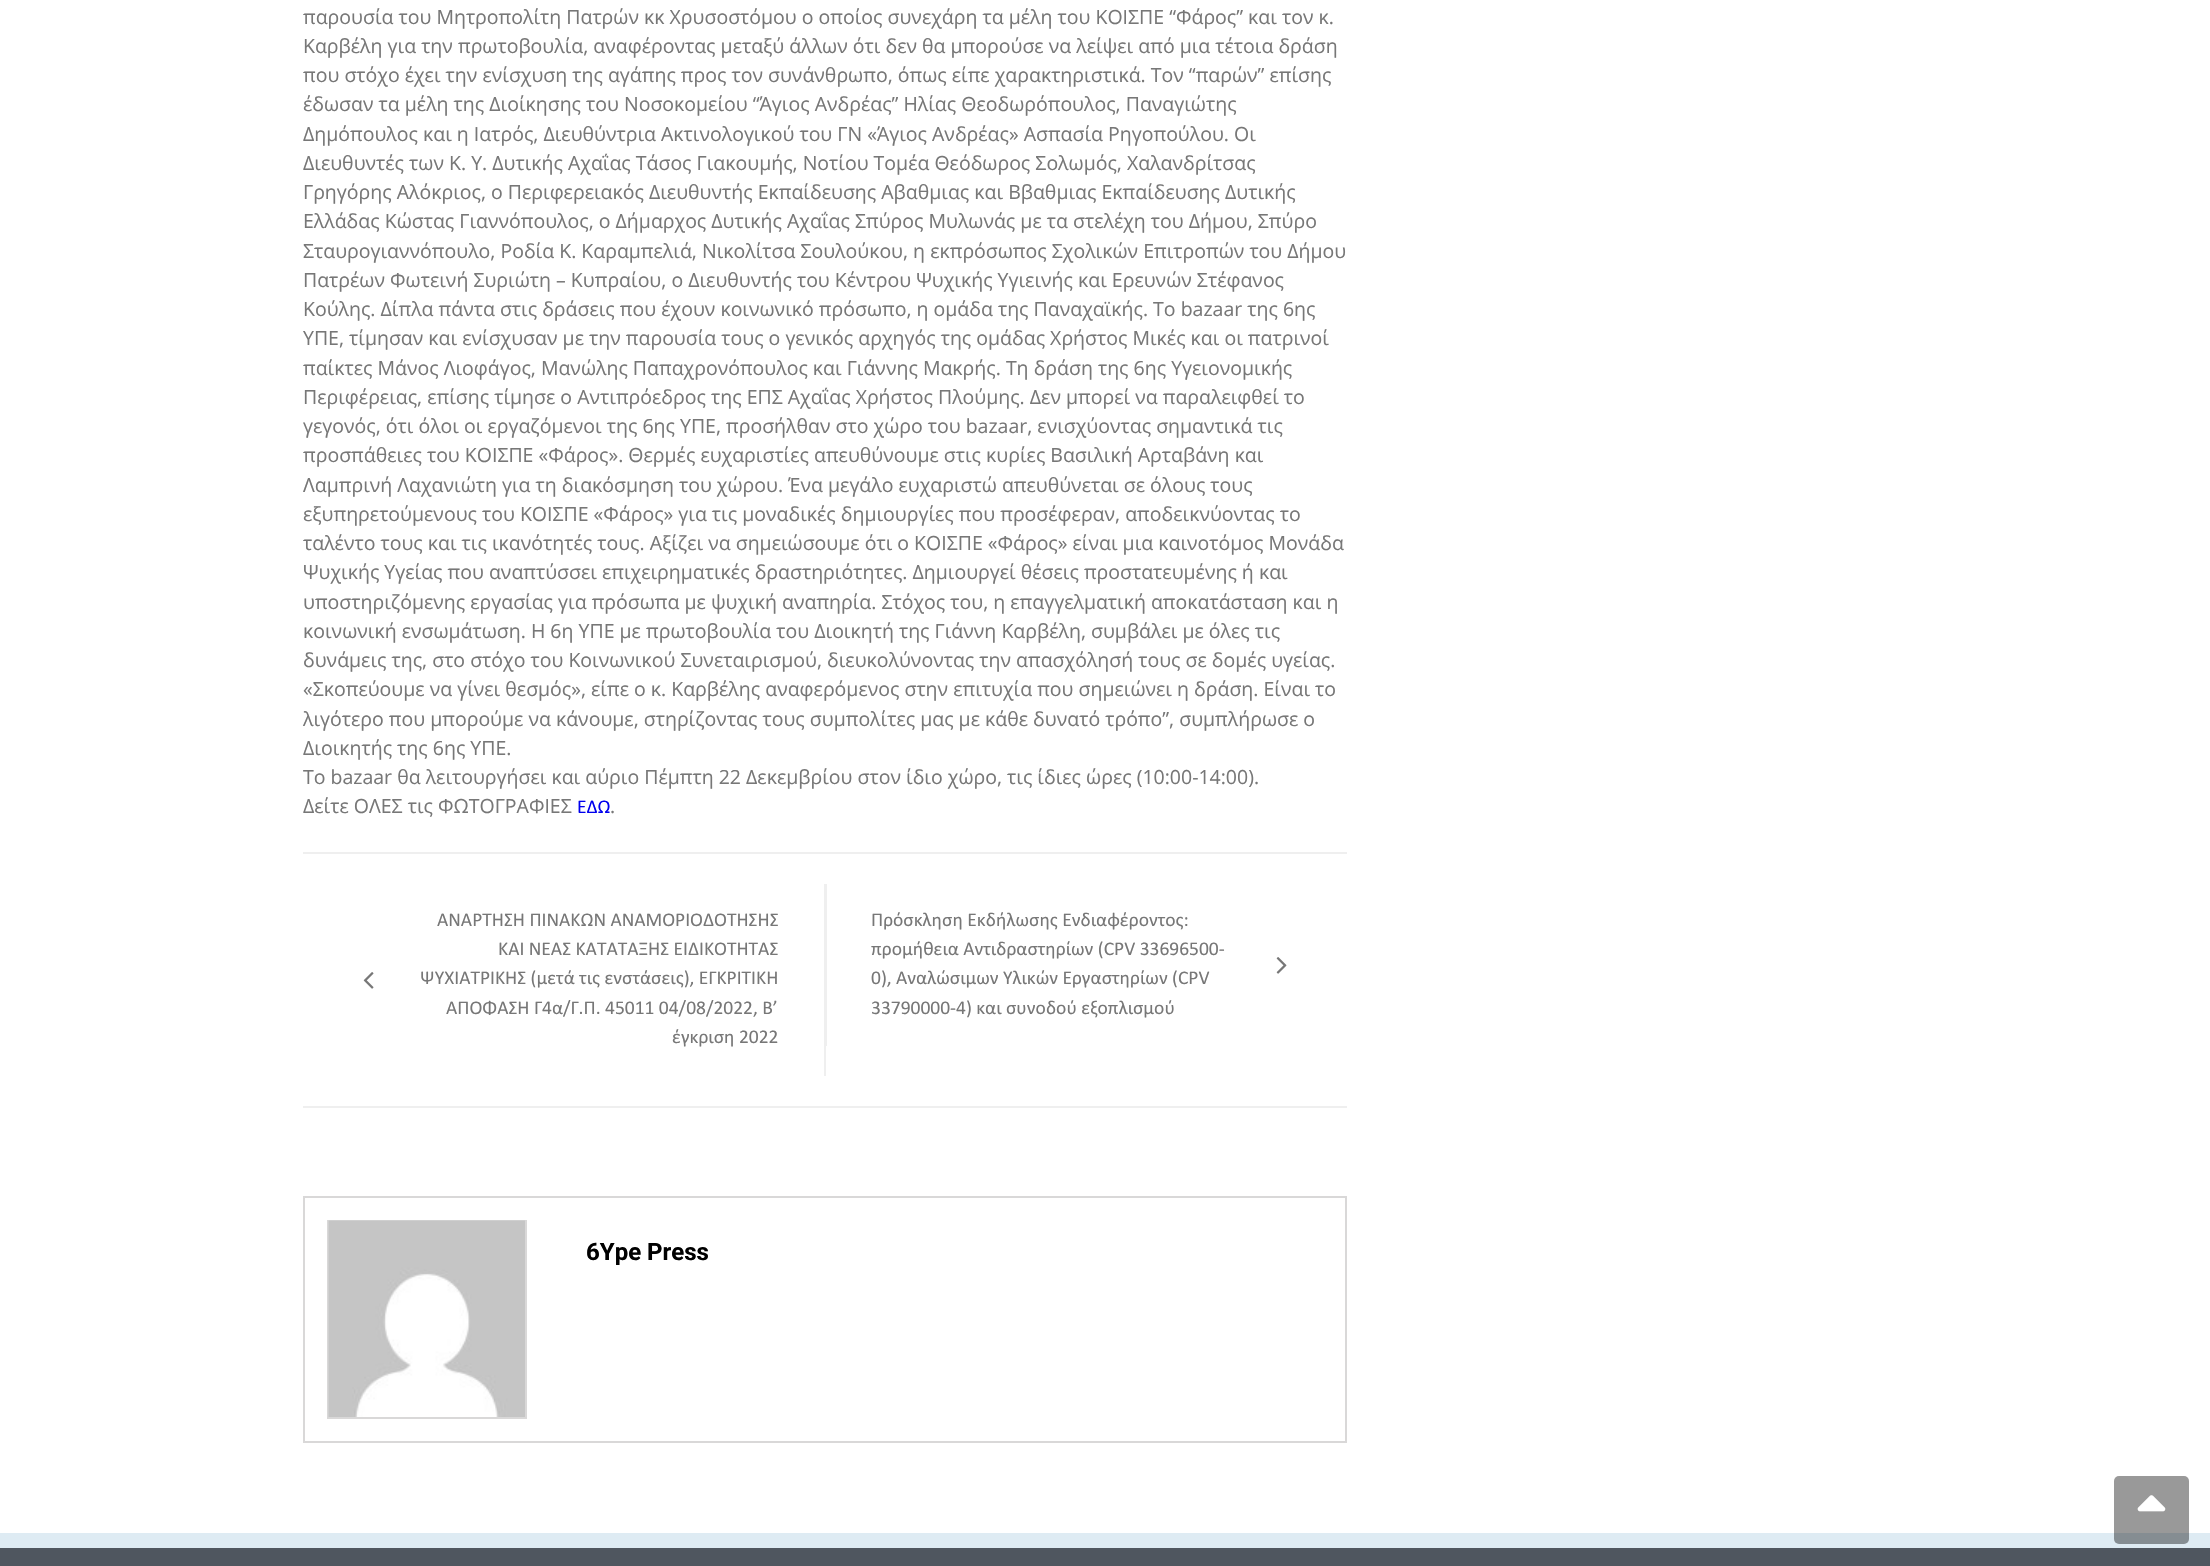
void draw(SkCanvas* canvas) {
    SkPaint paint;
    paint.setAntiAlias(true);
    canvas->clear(0xFFFFFFFF);
    SkFont font1(fontMgr->matchFamilyStyle("Open Sans", SkFontStyle::Normal()), 19.5f);
    font1.setSubpixel(true);
    paint.setColor(0xFF777777);
    canvas->drawString("παρουσία του Μητροπολίτη Πατρών κκ Χρυσοστόμου ο οποίος συνεχάρη τα μέλη του ΚΟΙΣΠΕ “Φάρος” και τον κ.", 303, 24, font1, paint);
    canvas->drawString("Καρβέλη για την πρωτοβουλία, αναφέροντας μεταξύ άλλων ότι δεν θα μπορούσε να λείψει από μια τέτοια δράση", 303, 53, font1, paint);
    canvas->drawString("που στόχο έχει την ενίσχυση της αγάπης προς τον συνάνθρωπο, όπως είπε χαρακτηριστικά. Τον “παρών” επίσης", 303, 82, font1, paint);
    canvas->drawString("έδωσαν τα μέλη της Διοίκησης του Νοσοκομείου “Άγιος Ανδρέας” Ηλίας Θεοδωρόπουλος, Παναγιώτης", 303, 111, font1, paint);
    canvas->drawString("Δημόπουλος και η Ιατρός, Διευθύντρια Ακτινολογικού του ΓΝ «Άγιος Ανδρέας» Ασπασία Ρηγοπούλου. Οι", 303, 141, font1, paint);
    canvas->drawString("Διευθυντές των Κ. Υ. Δυτικής Αχαΐας Τάσος Γιακουμής, Νοτίου Τομέα Θεόδωρος Σολωμός, Χαλανδρίτσας", 303, 170, font1, paint);
    canvas->drawString("Γρηγόρης Αλόκριος, ο Περιφερειακός Διευθυντής Εκπαίδευσης Αβαθμιας και Ββαθμιας Εκπαίδευσης Δυτικής", 303, 199, font1, paint);
    canvas->drawString("Ελλάδας Κώστας Γιαννόπουλος, ο Δήμαρχος Δυτικής Αχαΐας Σπύρος Μυλωνάς με τα στελέχη του Δήμου, Σπύρο", 303, 228, font1, paint);
    canvas->drawString("Σταυρογιαννόπουλο, Ροδία Κ. Καραμπελιά, Νικολίτσα Σουλούκου, η εκπρόσωπος Σχολικών Επιτροπών του Δήμου", 303, 258, font1, paint);
    canvas->drawString("Πατρέων Φωτεινή Συριώτη – Κυπραίου, ο Διευθυντής του Κέντρου Ψυχικής Υγιεινής και Ερευνών Στέφανος", 303, 287, font1, paint);
    canvas->drawString("Κούλης. Δίπλα πάντα στις δράσεις που έχουν κοινωνικό πρόσωπο, η ομάδα της Παναχαϊκής. Το bazaar της 6ης", 303, 316, font1, paint);
    canvas->drawString("ΥΠΕ, τίμησαν και ενίσχυσαν με την παρουσία τους ο γενικός αρχηγός της ομάδας Χρήστος Μικές και οι πατρινοί", 303, 345, font1, paint);
    canvas->drawString("παίκτες Μάνος Λιοφάγος, Μανώλης Παπαχρονόπουλος και Γιάννης Μακρής. Τη δράση της 6ης Υγειονομικής", 303, 375, font1, paint);
    canvas->drawString("Περιφέρειας, επίσης τίμησε ο Αντιπρόεδρος της ΕΠΣ Αχαΐας Χρήστος Πλούμης. Δεν μπορεί να παραλειφθεί το", 303, 404, font1, paint);
    canvas->drawString("γεγονός, ότι όλοι οι εργαζόμενοι της 6ης ΥΠΕ, προσήλθαν στο χώρο του bazaar, ενισχύοντας σημαντικά τις", 303, 433, font1, paint);
    canvas->drawString("προσπάθειες του ΚΟΙΣΠΕ «Φάρος». Θερμές ευχαριστίες απευθύνουμε στις κυρίες Βασιλική Αρταβάνη και", 303, 462, font1, paint);
    canvas->drawString("Λαμπρινή Λαχανιώτη για τη διακόσμηση του χώρου. Ένα μεγάλο ευχαριστώ απευθύνεται σε όλους τους", 303, 492, font1, paint);
    canvas->drawString("εξυπηρετούμενους του ΚΟΙΣΠΕ «Φάρος» για τις μοναδικές δημιουργίες που προσέφεραν, αποδεικνύοντας το", 303, 521, font1, paint);
    canvas->drawString("ταλέντο τους και τις ικανότητές τους. Αξίζει να σημειώσουμε ότι ο ΚΟΙΣΠΕ «Φάρος» είναι μια καινοτόμος Μονάδα", 303, 550, font1, paint);
    canvas->drawString("Ψυχικής Υγείας που αναπτύσσει επιχειρηματικές δραστηριότητες. Δημιουργεί θέσεις προστατευμένης ή και", 303, 579, font1, paint);
    canvas->drawString("υποστηριζόμενης εργασίας για πρόσωπα με ψυχική αναπηρία. Στόχος του, η επαγγελματική αποκατάσταση και η", 303, 609, font1, paint);
    canvas->drawString("κοινωνική ενσωμάτωση. Η 6η ΥΠΕ με πρωτοβουλία του Διοικητή της Γιάννη Καρβέλη, συμβάλει με όλες τις", 303, 638, font1, paint);
    canvas->drawString("δυνάμεις της, στο στόχο του Κοινωνικού Συνεταιρισμού, διευκολύνοντας την απασχόλησή τους σε δομές υγείας.", 303, 667, font1, paint);
    canvas->drawString("«Σκοπεύουμε να γίνει θεσμός», είπε ο κ. Καρβέλης αναφερόμενος στην επιτυχία που σημειώνει η δράση. Είναι το", 303, 696, font1, paint);
    canvas->drawString("λιγότερο που μπορούμε να κάνουμε, στηρίζοντας τους συμπολίτες μας με κάθε δυνατό τρόπο”, συμπλήρωσε ο", 303, 726, font1, paint);
    canvas->drawString("Διοικητής της 6ης ΥΠΕ.", 303, 755, font1, paint);
    canvas->drawString("Το bazaar θα λειτουργήσει και αύριο Πέμπτη 22 Δεκεμβρίου στον ίδιο χώρο, τις ίδιες ώρες (10:00-14:00).", 303, 784, font1, paint);
    canvas->drawString("Δείτε ΟΛΕΣ τις ΦΩΤΟΓΡΑΦΙΕΣ", 303, 813, font1, paint);
    SkFont font2(fontMgr->matchFamilyStyle("Calibri", SkFontStyle::Normal()), 19.5f);
    font2.setSubpixel(true);
    paint.setColor(0xFF0000EE);
    canvas->drawString("ΕΔΩ", 577, 813, font2, paint);
    paint.setColor(0xFF777777);
    canvas->drawString(".", 610, 813, font1, paint);
    paint.setColor(0xFFEFEFEF);
    canvas->drawRect(SkRect::MakeXYWH(303, 852, 1044, 2), paint);
    canvas->drawRect(SkRect::MakeXYWH(303, 1106, 1044, 2), paint);
    canvas->drawRect(SkRect::MakeXYWH(824, 884, 2, 192), paint);
    paint.setColor(0xFF777777);
    canvas->drawString("ΑΝΑΡΤΗΣΗ ΠΙΝΑΚΩΝ ΑΝΑΜΟΡΙΟΔΟΤΗΣΗΣ", 437, 926, font2, paint);
    canvas->drawString("ΚΑΙ ΝΕΑΣ ΚΑΤΑΤΑΞΗΣ ΕΙΔΙΚΟΤΗΤΑΣ", 498, 955, font2, paint);
    canvas->drawImageRect(SkImages::DeferredFromEncodedData(SkData::MakeFromFileName("img1.png")), SkRect::MakeXYWH(363, 972, 11, 17), SkSamplingOptions());
    canvas->drawString("ΨΥΧΙΑΤΡΙΚΗΣ (μετά τις ενστάσεις), ΕΓΚΡΙΤΙΚΗ", 420, 984, font2, paint);
    canvas->drawString("ΑΠΟΦΑΣΗ Γ4α/Γ.Π. 45011 04/08/2022, Β’", 446, 1014, font2, paint);
    canvas->drawString("έγκριση 2022", 672, 1043, font2, paint);
    paint.setColor(0xFFEFEFEF);
    canvas->drawRect(SkRect::MakeXYWH(826, 884, 1, 162), paint);
    paint.setColor(0xFF777777);
    canvas->drawString("Πρόσκληση Εκδήλωσης Ενδιαφέροντος:", 871, 926, font2, paint);
    canvas->drawString("προμήθεια Αντιδραστηρίων (CPV 33696500-", 871, 955, font2, paint);
    canvas->drawImageRect(SkImages::DeferredFromEncodedData(SkData::MakeFromFileName("img2.png")), SkRect::MakeXYWH(1276, 957, 11, 17), SkSamplingOptions());
    canvas->drawString("0), Αναλώσιμων Υλικών Εργαστηρίων (CPV", 871, 984, font2, paint);
    canvas->drawString("33790000-4) και συνοδού εξοπλισμού", 871, 1014, font2, paint);
    paint.setStyle(SkPaint::kStroke_Style);
    paint.setStrokeWidth(2);
    paint.setColor(0xFFD9D8D8);
    canvas->drawRect(SkRect::MakeXYWH(304, 1197, 1042, 245), paint);
    canvas->drawRect(SkRect::MakeXYWH(328, 1221, 198, 197), paint);
    canvas->drawImageRect(SkImages::DeferredFromEncodedData(SkData::MakeFromFileName("img3.png")), SkRect::MakeXYWH(328, 1220, 197, 197), SkSamplingOptions());
    SkFont font3(fontMgr->matchFamilyStyle("Roboto", SkFontStyle::Bold()), 24);
    font3.setSubpixel(true);
    paint.setStyle(SkPaint::kFill_Style);
    paint.setColor(0xFF000000);
    canvas->drawString("6Ype Press", 586, 1260, font3, paint);
    paint.setColor(0xFFDEEBF3);
    canvas->drawRect(SkRect::MakeXYWH(0, 1533, 2210, 15), paint);
    paint.setColor(0x66000000);
    canvas->drawRoundRect(SkRect::MakeXYWH(2114, 1476, 75, 68), 5, 5, paint);
    canvas->drawImageRect(SkImages::DeferredFromEncodedData(SkData::MakeFromFileName("img4.png")), SkRect::MakeXYWH(2137, 1495, 29, 17), SkSamplingOptions());
    paint.setColor(0xFF4F565F);
    canvas->drawRect(SkRect::MakeXYWH(0, 1548, 2210, 18), paint);
}
